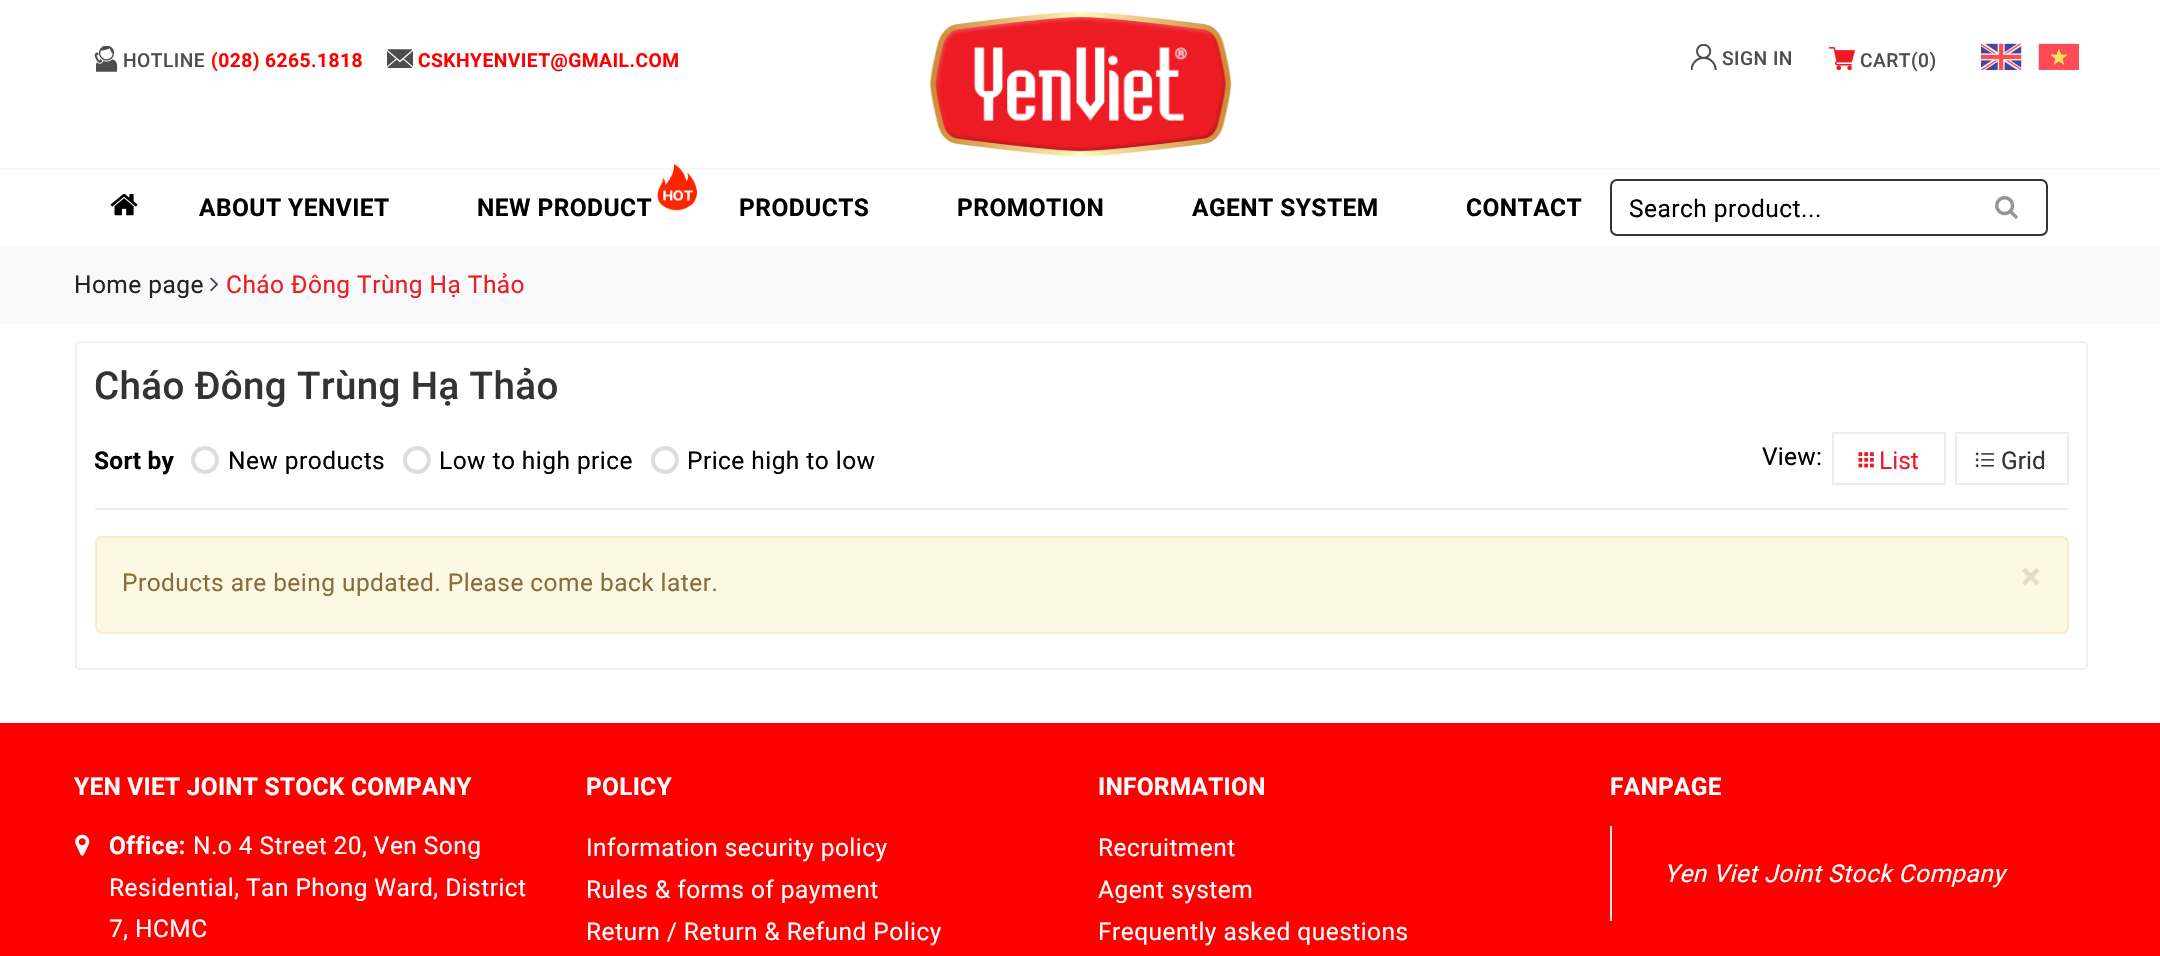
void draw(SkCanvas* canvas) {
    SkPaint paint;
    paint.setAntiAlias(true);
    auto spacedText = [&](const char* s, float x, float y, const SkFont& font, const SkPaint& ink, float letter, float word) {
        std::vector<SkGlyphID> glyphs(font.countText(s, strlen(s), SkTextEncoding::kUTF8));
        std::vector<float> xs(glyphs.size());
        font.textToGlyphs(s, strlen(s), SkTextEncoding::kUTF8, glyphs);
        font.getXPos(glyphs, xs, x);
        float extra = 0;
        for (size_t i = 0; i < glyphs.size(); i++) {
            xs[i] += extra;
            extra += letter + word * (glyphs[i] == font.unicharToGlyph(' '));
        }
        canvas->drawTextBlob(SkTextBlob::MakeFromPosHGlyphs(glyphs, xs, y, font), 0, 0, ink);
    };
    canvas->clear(0xFFFFFFFF);
    canvas->drawImageRect(SkImages::DeferredFromEncodedData(SkData::MakeFromFileName("img1.png")), SkRect::MakeXYWH(94, 46, 24, 26), SkSamplingOptions());
    SkFont font1(fontMgr->matchFamilyStyle("Roboto", SkFontStyle(500, SkFontStyle::kNormal_Width, SkFontStyle::kUpright_Slant)), 19.25f);
    font1.setSubpixel(true);
    paint.setColor(0xFF4D4D4D);
    spacedText("HOTLINE", 123, 67, font1, paint, 0.45f, 0);
    SkFont font2(fontMgr->matchFamilyStyle("Roboto", SkFontStyle::Bold()), 19.25f);
    font2.setSubpixel(true);
    paint.setColor(0xFFFF0000);
    spacedText("(028) 6265.1818", 211, 67, font2, paint, 0.45f, 0);
    canvas->drawImageRect(SkImages::DeferredFromEncodedData(SkData::MakeFromFileName("img2.png")), SkRect::MakeXYWH(387, 49, 26, 19), SkSamplingOptions());
    spacedText("CSKHYENVIET@GMAIL.COM", 418, 67, font2, paint, 0.45f, 0);
    canvas->drawImageRect(SkImages::DeferredFromEncodedData(SkData::MakeFromFileName("img3.png")), SkRect::MakeXYWH(929, 11, 303, 146), SkSamplingOptions());
    canvas->drawImageRect(SkImages::DeferredFromEncodedData(SkData::MakeFromFileName("img4.png")), SkRect::MakeXYWH(1691, 44, 26, 26), SkSamplingOptions());
    paint.setColor(0xFF4D4D4D);
    spacedText("SIGN IN", 1722, 65, font1, paint, 0.45f, 0);
    canvas->drawImageRect(SkImages::DeferredFromEncodedData(SkData::MakeFromFileName("img5.png")), SkRect::MakeXYWH(1829, 47, 26, 24), SkSamplingOptions());
    spacedText("CART(0)", 1860, 67, font1, paint, 0.45f, 0);
    canvas->drawImageRect(SkImages::DeferredFromEncodedData(SkData::MakeFromFileName("img6.png")), SkRect::MakeXYWH(1981, 43, 41, 27), SkSamplingOptions());
    canvas->drawImageRect(SkImages::DeferredFromEncodedData(SkData::MakeFromFileName("img7.png")), SkRect::MakeXYWH(2038, 43, 41, 27), SkSamplingOptions());
    paint.setColor(0xFFF7F7F7);
    canvas->drawRect(SkRect::MakeXYWH(0, 168, 2160, 2), paint);
    canvas->drawImageRect(SkImages::DeferredFromEncodedData(SkData::MakeFromFileName("img8.png")), SkRect::MakeXYWH(110, 194, 28, 22), SkSamplingOptions());
    SkFont font3(fontMgr->matchFamilyStyle("Roboto", SkFontStyle::Bold()), 24.5f);
    font3.setSubpixel(true);
    paint.setColor(0xFF000000);
    spacedText("ABOUT YENVIET", 199, 216, font3, paint, 0.45f, 0);
    spacedText("NEW PRODUCT", 477, 216, font3, paint, 0.45f, 0);
    canvas->drawImageRect(SkImages::DeferredFromEncodedData(SkData::MakeFromFileName("img9.png")), SkRect::MakeXYWH(657, 164, 40, 47), SkSamplingOptions());
    spacedText("PRODUCTS", 739, 216, font3, paint, 0.45f, 0);
    spacedText("PROMOTION", 957, 216, font3, paint, 0.45f, 0);
    spacedText("AGENT SYSTEM", 1192, 216, font3, paint, 0.45f, 0);
    spacedText("CONTACT", 1466, 216, font3, paint, 0.45f, 0);
    paint.setStyle(SkPaint::kStroke_Style);
    paint.setStrokeWidth(2);
    paint.setColor(0xFF333333);
    canvas->drawRoundRect(SkRect::MakeXYWH(1611, 180, 436, 55), 6, 6, paint);
    SkFont font4(fontMgr->matchFamilyStyle("Roboto", SkFontStyle::Normal()), 24.5f);
    font4.setSubpixel(true);
    paint.setStyle(SkPaint::kFill_Style);
    paint.setColor(0xFF000000);
    spacedText("Search product...", 1629, 217, font4, paint, 0.45f, 0);
    canvas->drawImageRect(SkImages::DeferredFromEncodedData(SkData::MakeFromFileName("img10.png")), SkRect::MakeXYWH(1995, 196, 23, 23), SkSamplingOptions());
    paint.setColor(0xFFF9F9F9);
    canvas->drawRect(SkRect::MakeXYWH(0, 247, 2160, 77), paint);
    paint.setColor(0xFF222222);
    spacedText("Home page", 74, 293, font4, paint, 0.45f, 0);
    canvas->drawImageRect(SkImages::DeferredFromEncodedData(SkData::MakeFromFileName("img11.png")), SkRect::MakeXYWH(210, 277, 9, 15), SkSamplingOptions());
    paint.setColor(0xFFED1C24);
    spacedText("Cháo Đông Trùng Hạ Thảo", 226, 293, font4, paint, 0.45f, 0);
    paint.setStyle(SkPaint::kStroke_Style);
    paint.setColor(0xFFECF2F4);
    canvas->drawRoundRect(SkRect::MakeXYWH(76, 342, 2011, 327), 4, 4, paint);
    SkFont font5(fontMgr->matchFamilyStyle("Roboto", SkFontStyle(500, SkFontStyle::kNormal_Width, SkFontStyle::kUpright_Slant)), 38.5f);
    font5.setSubpixel(true);
    paint.setStyle(SkPaint::kFill_Style);
    paint.setColor(0xFF333333);
    spacedText("Cháo Đông Trùng Hạ Thảo", 94, 399, font5, paint, 0.4f, 0);
    paint.setColor(0xFFEAECED);
    canvas->drawRect(SkRect::MakeXYWH(95, 508, 1974, 2), paint);
    paint.setColor(0xFF000000);
    spacedText("Sort by", 94, 469, font3, paint, 0.25f, 0);
    paint.setStyle(SkPaint::kStroke_Style);
    paint.setStrokeWidth(4);
    paint.setColor(0xFFDDDDDD);
    canvas->drawCircle(205, 460, 12, paint);
    paint.setStyle(SkPaint::kFill_Style);
    paint.setColor(0xFF000000);
    spacedText("New products", 228, 469, font4, paint, 0.45f, 0);
    paint.setStyle(SkPaint::kStroke_Style);
    paint.setColor(0xFFDDDDDD);
    canvas->drawCircle(417, 460, 12, paint);
    paint.setStyle(SkPaint::kFill_Style);
    paint.setColor(0xFF000000);
    spacedText("Low to high price", 439, 469, font4, paint, 0.45f, 0);
    paint.setStyle(SkPaint::kStroke_Style);
    paint.setColor(0xFFDDDDDD);
    canvas->drawCircle(665, 460, 12, paint);
    paint.setStyle(SkPaint::kFill_Style);
    paint.setColor(0xFF000000);
    spacedText("Price high to low", 687, 469, font4, paint, 0.45f, 0);
    spacedText("View:", 1762, 465, font4, paint, 0.25f, 0);
    paint.setStyle(SkPaint::kStroke_Style);
    paint.setStrokeWidth(2);
    paint.setColor(0xFFEAECED);
    canvas->drawRect(SkRect::MakeXYWH(1833, 433, 112, 51), paint);
    canvas->drawImageRect(SkImages::DeferredFromEncodedData(SkData::MakeFromFileName("img12.png")), SkRect::MakeXYWH(1858, 452, 16, 16), SkSamplingOptions());
    paint.setStyle(SkPaint::kFill_Style);
    paint.setColor(0xFFED1C24);
    canvas->drawString("List", 1879, 469, font4, paint);
    paint.setStyle(SkPaint::kStroke_Style);
    paint.setColor(0xFFEAECED);
    canvas->drawRect(SkRect::MakeXYWH(1956, 433, 112, 51), paint);
    canvas->drawImageRect(SkImages::DeferredFromEncodedData(SkData::MakeFromFileName("img13.png")), SkRect::MakeXYWH(1975, 452, 20, 16), SkSamplingOptions());
    paint.setStyle(SkPaint::kFill_Style);
    paint.setColor(0xFF333333);
    canvas->drawString("Grid", 2001, 469, font4, paint);
    paint.setColor(0xFFFCF8E3);
    canvas->drawRoundRect(SkRect::MakeXYWH(96, 537, 1972, 96), 6, 6, paint);
    paint.setStyle(SkPaint::kStroke_Style);
    paint.setColor(0xFFFAEBCC);
    canvas->drawRoundRect(SkRect::MakeXYWH(96, 537, 1972, 96), 6, 6, paint);
    paint.setStyle(SkPaint::kFill_Style);
    paint.setColor(0xFF8A6D3B);
    spacedText("Products are being updated. Please come back later.", 122, 591, font4, paint, 0.45f, 0);
    SkFont font6(fontMgr->matchFamilyStyle("Roboto", SkFontStyle::Bold()), 37);
    font6.setSubpixel(true);
    paint.setColor(0xFFE5DCC1);
    spacedText("×", 2021, 589, font6, paint, 0.45f, 0);
    paint.setColor(0xFFFF0000);
    canvas->drawRect(SkRect::MakeXYWH(0, 723, 2160, 233), paint);
    paint.setColor(0xFFFFFFFF);
    spacedText("YEN VIET JOINT STOCK COMPANY", 74, 795, font3, paint, 0.25f, 0);
    canvas->drawImageRect(SkImages::DeferredFromEncodedData(SkData::MakeFromFileName("img14.png")), SkRect::MakeXYWH(75, 834, 15, 22), SkSamplingOptions());
    spacedText("Office:", 109, 854, font3, paint, 0.45f, 0);
    spacedText("N.o 4 Street 20, Ven Song", 193, 854, font4, paint, 0.45f, 0);
    spacedText("Residential, Tan Phong Ward, District", 109, 896, font4, paint, 0.45f, 0);
    spacedText("7, HCMC", 109, 937, font4, paint, 0.45f, 0);
    spacedText("POLICY", 586, 795, font3, paint, 0.25f, 0);
    spacedText("Information security policy", 586, 856, font4, paint, 0.45f, 0);
    spacedText("Rules & forms of payment", 586, 898, font4, paint, 0.45f, 0);
    spacedText("Return / Return & Refund Policy", 586, 940, font4, paint, 0.45f, 0);
    spacedText("INFORMATION", 1098, 795, font3, paint, 0.25f, 0);
    spacedText("Recruitment", 1098, 856, font4, paint, 0.45f, 0);
    spacedText("Agent system", 1098, 898, font4, paint, 0.45f, 0);
    spacedText("Frequently asked questions", 1098, 940, font4, paint, 0.45f, 0);
    spacedText("FANPAGE", 1610, 795, font3, paint, 0.25f, 0);
    paint.setColor(0xFFE1E1E1);
    canvas->drawRect(SkRect::MakeXYWH(1610, 826, 2, 95), paint);
    SkFont font7(fontMgr->matchFamilyStyle("Roboto", SkFontStyle::Italic()), 24.5f);
    font7.setSubpixel(true);
    paint.setColor(0xFFFFFFFF);
    spacedText("Yen Viet Joint Stock Company", 1664, 882, font7, paint, 0.45f, 0);
}
